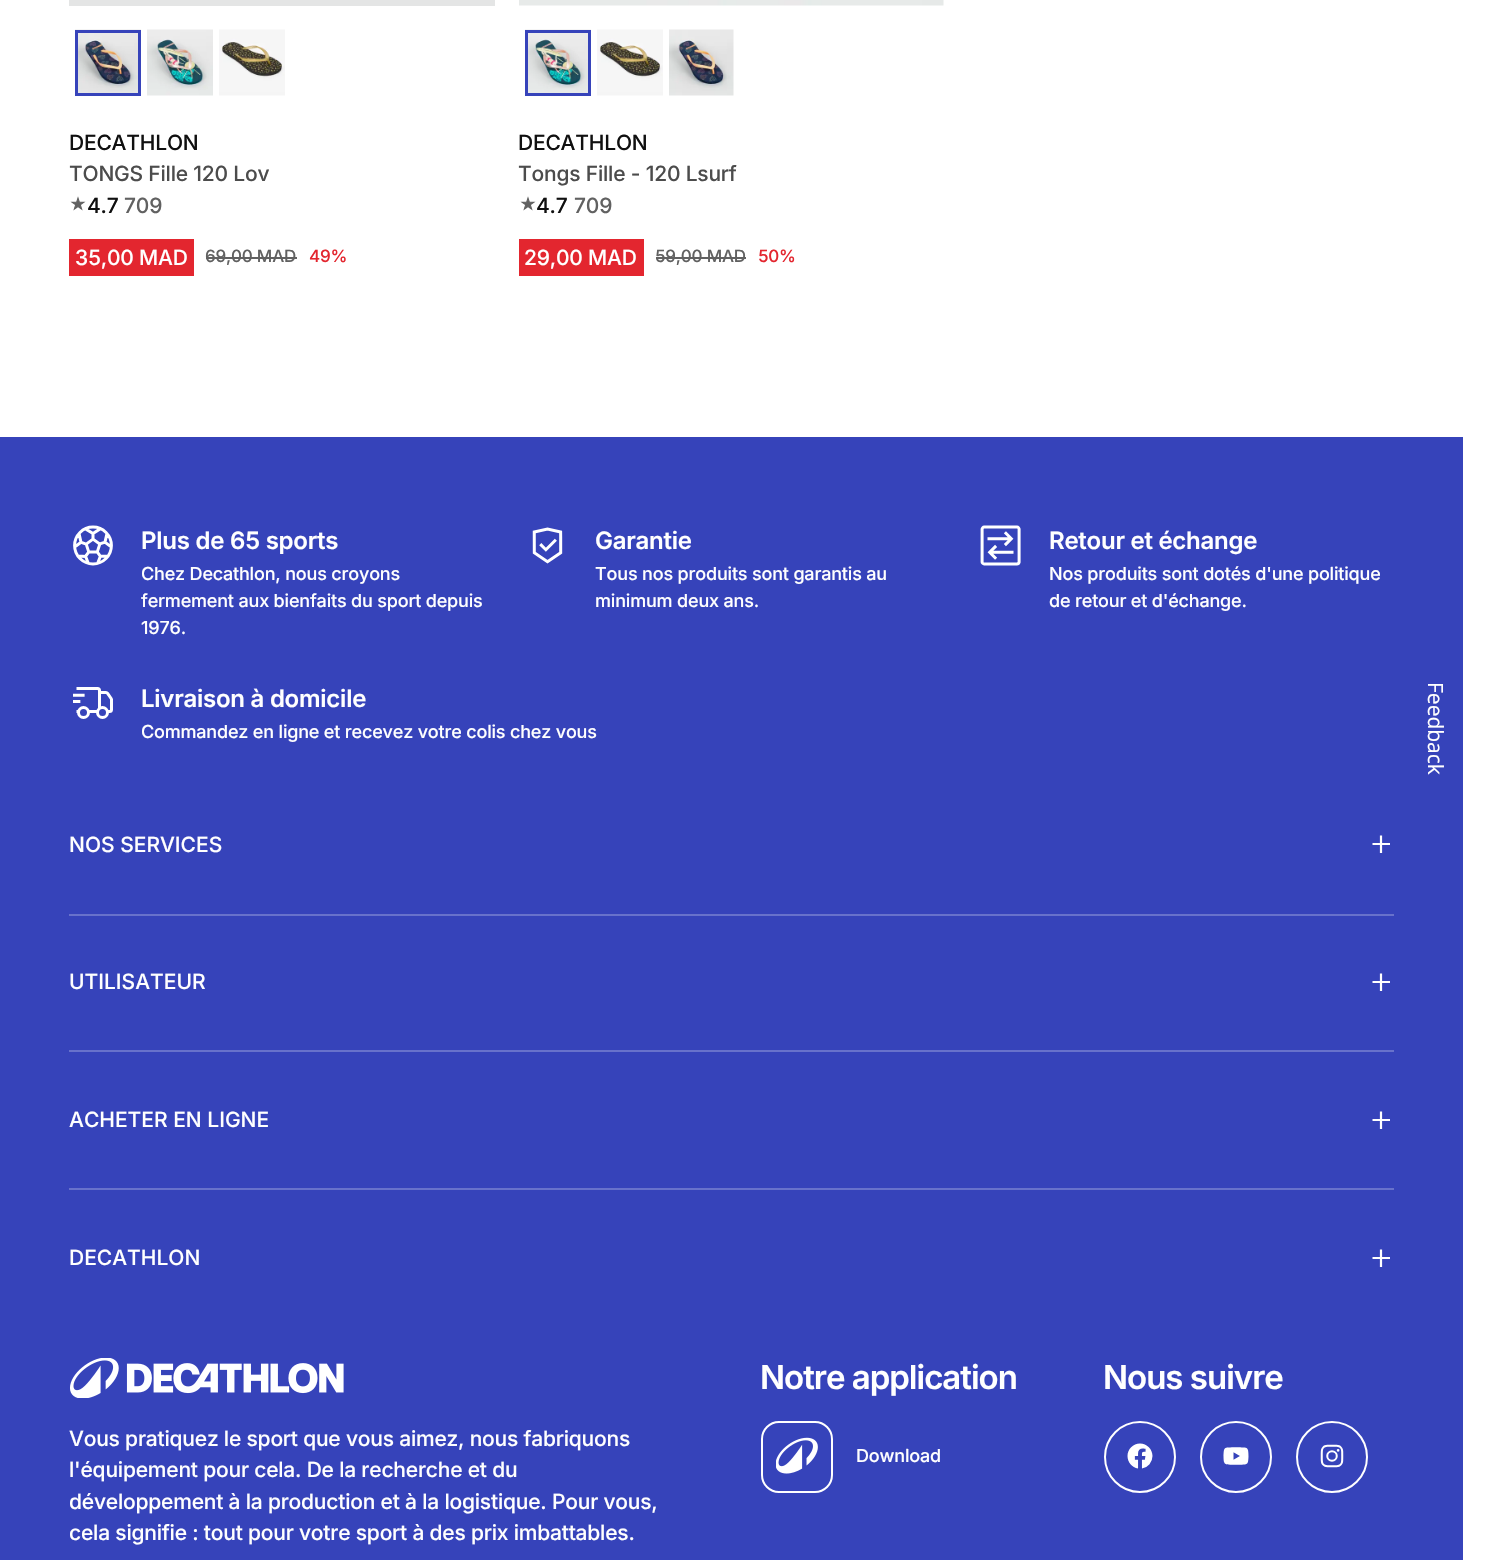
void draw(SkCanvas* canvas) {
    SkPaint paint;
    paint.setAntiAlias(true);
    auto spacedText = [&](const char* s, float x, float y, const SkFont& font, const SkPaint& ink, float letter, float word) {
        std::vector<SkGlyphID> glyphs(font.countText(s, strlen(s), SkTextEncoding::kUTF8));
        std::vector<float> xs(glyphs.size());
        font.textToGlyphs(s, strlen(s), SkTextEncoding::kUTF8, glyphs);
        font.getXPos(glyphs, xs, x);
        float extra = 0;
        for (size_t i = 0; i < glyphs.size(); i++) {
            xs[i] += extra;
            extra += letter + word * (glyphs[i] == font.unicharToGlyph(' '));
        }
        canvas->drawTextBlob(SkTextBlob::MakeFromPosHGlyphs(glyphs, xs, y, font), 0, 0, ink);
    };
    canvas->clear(0xFFFFFFFF);
    paint.setColor(0xFFE4E5E5);
    canvas->drawRect(SkRect::MakeXYWH(69, 0, 426, 6), paint);
    canvas->drawImageRect(SkImages::DeferredFromEncodedData(SkData::MakeFromFileName("img1.png")), SkRect::MakeXYWH(75, 29, 66, 64), SkSamplingOptions());
    paint.setStyle(SkPaint::kStroke_Style);
    paint.setStrokeWidth(3);
    paint.setColor(0xFF3643BA);
    canvas->drawRect(SkRect::MakeXYWH(76.5f, 31.5f, 63, 63), paint);
    canvas->drawImageRect(SkImages::DeferredFromEncodedData(SkData::MakeFromFileName("img2.png")), SkRect::MakeXYWH(147, 29, 66, 67), SkSamplingOptions());
    canvas->drawImageRect(SkImages::DeferredFromEncodedData(SkData::MakeFromFileName("img3.png")), SkRect::MakeXYWH(219, 29, 66, 67), SkSamplingOptions());
    SkFont font1(fontMgr->matchFamilyStyle("Inter", SkFontStyle(500, SkFontStyle::kNormal_Width, SkFontStyle::kUpright_Slant)), 21);
    font1.setSubpixel(true);
    paint.setStyle(SkPaint::kFill_Style);
    paint.setColor(0xFF101010);
    spacedText("DECATHLON", 69, 150, font1, paint, -0.2f, 0);
    paint.setColor(0xFF4C4C4C);
    spacedText("TONGS Fille 120 Lov", 69, 181, font1, paint, -0.2f, 0);
    canvas->drawImageRect(SkImages::DeferredFromEncodedData(SkData::MakeFromFileName("img4.png")), SkRect::MakeXYWH(70, 196, 16, 15), SkSamplingOptions());
    paint.setColor(0xFF101010);
    spacedText("4.7", 87, 213, font1, paint, -0.2f, 0);
    paint.setColor(0xFF616161);
    spacedText("709", 124, 213, font1, paint, -0.2f, 0);
    paint.setColor(0xFFE3262F);
    canvas->drawRect(SkRect::MakeXYWH(69, 239, 125, 37), paint);
    paint.setColor(0xFFFFFFFF);
    spacedText("35,00 MAD", 75, 265, font1, paint, -0.2f, 0);
    SkFont font2(fontMgr->matchFamilyStyle("Inter", SkFontStyle(500, SkFontStyle::kNormal_Width, SkFontStyle::kUpright_Slant)), 17);
    font2.setSubpixel(true);
    paint.setColor(0xFF616161);
    spacedText("69,00 MAD", 205, 262, font2, paint, -0.2f, 0);
    canvas->drawRect(SkRect::MakeXYWH(206, 257, 91, 2), paint);
    paint.setColor(0xFFE3262F);
    spacedText("49%", 309, 262, font2, paint, -0.2f, 0);
    canvas->drawImageRect(SkImages::DeferredFromEncodedData(SkData::MakeFromFileName("img5.png")), SkRect::MakeXYWH(519, 0, 425, 6), SkSamplingOptions());
    canvas->drawImageRect(SkImages::DeferredFromEncodedData(SkData::MakeFromFileName("img6.png")), SkRect::MakeXYWH(525, 29, 66, 64), SkSamplingOptions());
    paint.setStyle(SkPaint::kStroke_Style);
    paint.setColor(0xFF3643BA);
    canvas->drawRect(SkRect::MakeXYWH(526.5f, 31.5f, 63, 63), paint);
    canvas->drawImageRect(SkImages::DeferredFromEncodedData(SkData::MakeFromFileName("img3.png")), SkRect::MakeXYWH(597, 29, 66, 67), SkSamplingOptions());
    canvas->drawImageRect(SkImages::DeferredFromEncodedData(SkData::MakeFromFileName("img7.png")), SkRect::MakeXYWH(669, 29, 65, 67), SkSamplingOptions());
    paint.setStyle(SkPaint::kFill_Style);
    paint.setColor(0xFF101010);
    spacedText("DECATHLON", 518, 150, font1, paint, -0.2f, 0);
    paint.setColor(0xFF4C4C4C);
    spacedText("Tongs Fille - 120 Lsurf", 518, 181, font1, paint, -0.2f, 0);
    canvas->drawImageRect(SkImages::DeferredFromEncodedData(SkData::MakeFromFileName("img4.png")), SkRect::MakeXYWH(520, 196, 16, 15), SkSamplingOptions());
    paint.setColor(0xFF101010);
    spacedText("4.7", 536, 213, font1, paint, -0.2f, 0);
    paint.setColor(0xFF616161);
    spacedText("709", 574, 213, font1, paint, -0.2f, 0);
    paint.setColor(0xFFE3262F);
    canvas->drawRect(SkRect::MakeXYWH(519, 239, 125, 37), paint);
    paint.setColor(0xFFFFFFFF);
    spacedText("29,00 MAD", 524, 265, font1, paint, -0.2f, 0);
    paint.setColor(0xFF616161);
    spacedText("59,00 MAD", 655, 262, font2, paint, -0.2f, 0);
    canvas->drawRect(SkRect::MakeXYWH(656, 257, 90, 2), paint);
    paint.setColor(0xFFE3262F);
    spacedText("50%", 758, 262, font2, paint, -0.2f, 0);
    paint.setColor(0xFF3643BA);
    canvas->drawRect(SkRect::MakeXYWH(0, 437, 1463, 1123), paint);
    canvas->drawImageRect(SkImages::DeferredFromEncodedData(SkData::MakeFromFileName("img8.png")), SkRect::MakeXYWH(73, 525, 40, 41), SkSamplingOptions());
    SkFont font3(fontMgr->matchFamilyStyle("Inter", SkFontStyle(600, SkFontStyle::kNormal_Width, SkFontStyle::kUpright_Slant)), 24);
    font3.setSubpixel(true);
    paint.setColor(0xFFFFFFFF);
    spacedText("Plus de 65 sports", 141, 549, font3, paint, -0.25f, 0);
    SkFont font4(fontMgr->matchFamilyStyle("Inter", SkFontStyle(500, SkFontStyle::kNormal_Width, SkFontStyle::kUpright_Slant)), 18);
    font4.setSubpixel(true);
    spacedText("Chez Decathlon, nous croyons", 141, 580, font4, paint, -0.18f, 0);
    spacedText("fermement aux bienfaits du sport depuis", 141, 607, font4, paint, -0.18f, 0);
    spacedText("1976.", 141, 634, font4, paint, -0.18f, 0);
    canvas->drawImageRect(SkImages::DeferredFromEncodedData(SkData::MakeFromFileName("img9.png")), SkRect::MakeXYWH(532, 527, 31, 37), SkSamplingOptions());
    spacedText("Garantie", 595, 549, font3, paint, -0.25f, 0);
    spacedText("Tous nos produits sont garantis au", 595, 580, font4, paint, -0.18f, 0);
    spacedText("minimum deux ans.", 595, 607, font4, paint, -0.18f, 0);
    canvas->drawImageRect(SkImages::DeferredFromEncodedData(SkData::MakeFromFileName("img10.png")), SkRect::MakeXYWH(980, 525, 41, 41), SkSamplingOptions());
    spacedText("Retour et échange", 1049, 549, font3, paint, -0.25f, 0);
    spacedText("Nos produits sont dotés d'une politique", 1049, 580, font4, paint, -0.18f, 0);
    spacedText("de retour et d'échange.", 1049, 607, font4, paint, -0.18f, 0);
    canvas->drawImageRect(SkImages::DeferredFromEncodedData(SkData::MakeFromFileName("img11.png")), SkRect::MakeXYWH(73, 687, 40, 32), SkSamplingOptions());
    spacedText("Livraison à domicile", 141, 707, font3, paint, -0.25f, 0);
    spacedText("Commandez en ligne et recevez votre colis chez vous", 141, 738, font4, paint, -0.18f, 0);
    canvas->drawString("NOS SERVICES", 69, 852, font1, paint);
    paint.setStyle(SkPaint::kStroke_Style);
    paint.setStrokeWidth(2.2f);
    canvas->drawPath(SkPathBuilder().moveTo(1381, 835.5f).lineTo(1381, 853).moveTo(1390, 844).lineTo(1372.5f, 844).detach(), paint);
    paint.setStyle(SkPaint::kFill_Style);
    paint.setColor(0xFF6872CB);
    canvas->drawRect(SkRect::MakeXYWH(69, 914, 1325, 2), paint);
    paint.setColor(0xFFFFFFFF);
    canvas->drawString("UTILISATEUR", 69, 989, font1, paint);
    paint.setStyle(SkPaint::kStroke_Style);
    canvas->drawPath(SkPathBuilder().moveTo(1381, 973.5f).lineTo(1381, 991).moveTo(1390, 982).lineTo(1372.5f, 982).detach(), paint);
    paint.setStyle(SkPaint::kFill_Style);
    paint.setColor(0xFF6872CB);
    canvas->drawRect(SkRect::MakeXYWH(69, 1050, 1325, 2), paint);
    paint.setColor(0xFFFFFFFF);
    canvas->drawString("ACHETER EN LIGNE", 69, 1127, font1, paint);
    paint.setStyle(SkPaint::kStroke_Style);
    canvas->drawPath(SkPathBuilder().moveTo(1381, 1111.5f).lineTo(1381, 1129).moveTo(1390, 1120).lineTo(1372.5f, 1120).detach(), paint);
    paint.setStyle(SkPaint::kFill_Style);
    paint.setColor(0xFF6872CB);
    canvas->drawRect(SkRect::MakeXYWH(69, 1188, 1325, 2), paint);
    paint.setColor(0xFFFFFFFF);
    canvas->drawString("DECATHLON", 69, 1265, font1, paint);
    paint.setStyle(SkPaint::kStroke_Style);
    canvas->drawPath(SkPathBuilder().moveTo(1381, 1249.5f).lineTo(1381, 1267).moveTo(1390, 1258).lineTo(1372.5f, 1258).detach(), paint);
    SkFont font5(fontMgr->matchFamilyStyle("Inter", SkFontStyle(600, SkFontStyle::kNormal_Width, SkFontStyle::kUpright_Slant)), 33);
    font5.setSubpixel(true);
    paint.setStyle(SkPaint::kFill_Style);
    spacedText("Notre application", 760, 1389, font5, paint, -1, 0);
    paint.setStyle(SkPaint::kStroke_Style);
    paint.setStrokeWidth(2);
    canvas->drawRoundRect(SkRect::MakeXYWH(762, 1422, 70, 70), 17, 17, paint);
    canvas->drawImageRect(SkImages::DeferredFromEncodedData(SkData::MakeFromFileName("img12.png")), SkRect::MakeXYWH(776, 1437, 42, 37), SkSamplingOptions());
    paint.setStyle(SkPaint::kFill_Style);
    spacedText("Download", 856, 1462, font4, paint, -0.18f, 0);
    spacedText("Nous suivre", 1103, 1389, font5, paint, -1, 0);
    paint.setStyle(SkPaint::kStroke_Style);
    canvas->drawCircle(1140, 1457, 35, paint);
    canvas->drawImageRect(SkImages::DeferredFromEncodedData(SkData::MakeFromFileName("img13.png")), SkRect::MakeXYWH(1127, 1443, 26, 26), SkSamplingOptions());
    canvas->drawCircle(1236, 1457, 35, paint);
    canvas->drawImageRect(SkImages::DeferredFromEncodedData(SkData::MakeFromFileName("img14.png")), SkRect::MakeXYWH(1223, 1447, 26, 18), SkSamplingOptions());
    canvas->drawCircle(1332, 1457, 35, paint);
    canvas->drawImageRect(SkImages::DeferredFromEncodedData(SkData::MakeFromFileName("img15.png")), SkRect::MakeXYWH(1320, 1444, 24, 24), SkSamplingOptions());
    canvas->drawImageRect(SkImages::DeferredFromEncodedData(SkData::MakeFromFileName("img16.png")), SkRect::MakeXYWH(70, 1358, 274, 40), SkSamplingOptions());
    paint.setStyle(SkPaint::kFill_Style);
    spacedText("Vous pratiquez le sport que vous aimez, nous fabriquons", 69, 1446, font1, paint, -0.2f, 0);
    spacedText("l'équipement pour cela. De la recherche et du", 69, 1477, font1, paint, -0.2f, 0);
    spacedText("développement à la production et à la logistique. Pour vous,", 69, 1509, font1, paint, -0.2f, 0);
    spacedText("cela signifie : tout pour votre sport à des prix imbattables.", 69, 1540, font1, paint, -0.2f, 0);
    SkFont font6(fontMgr->matchFamilyStyle("Open Sans", SkFontStyle::Normal()), 21);
    font6.setSubpixel(true);
    canvas->save();
    canvas->rotate(90, 1428, 682);
    canvas->drawString("Feedback", 1428, 682, font6, paint);
    canvas->restore();
}
